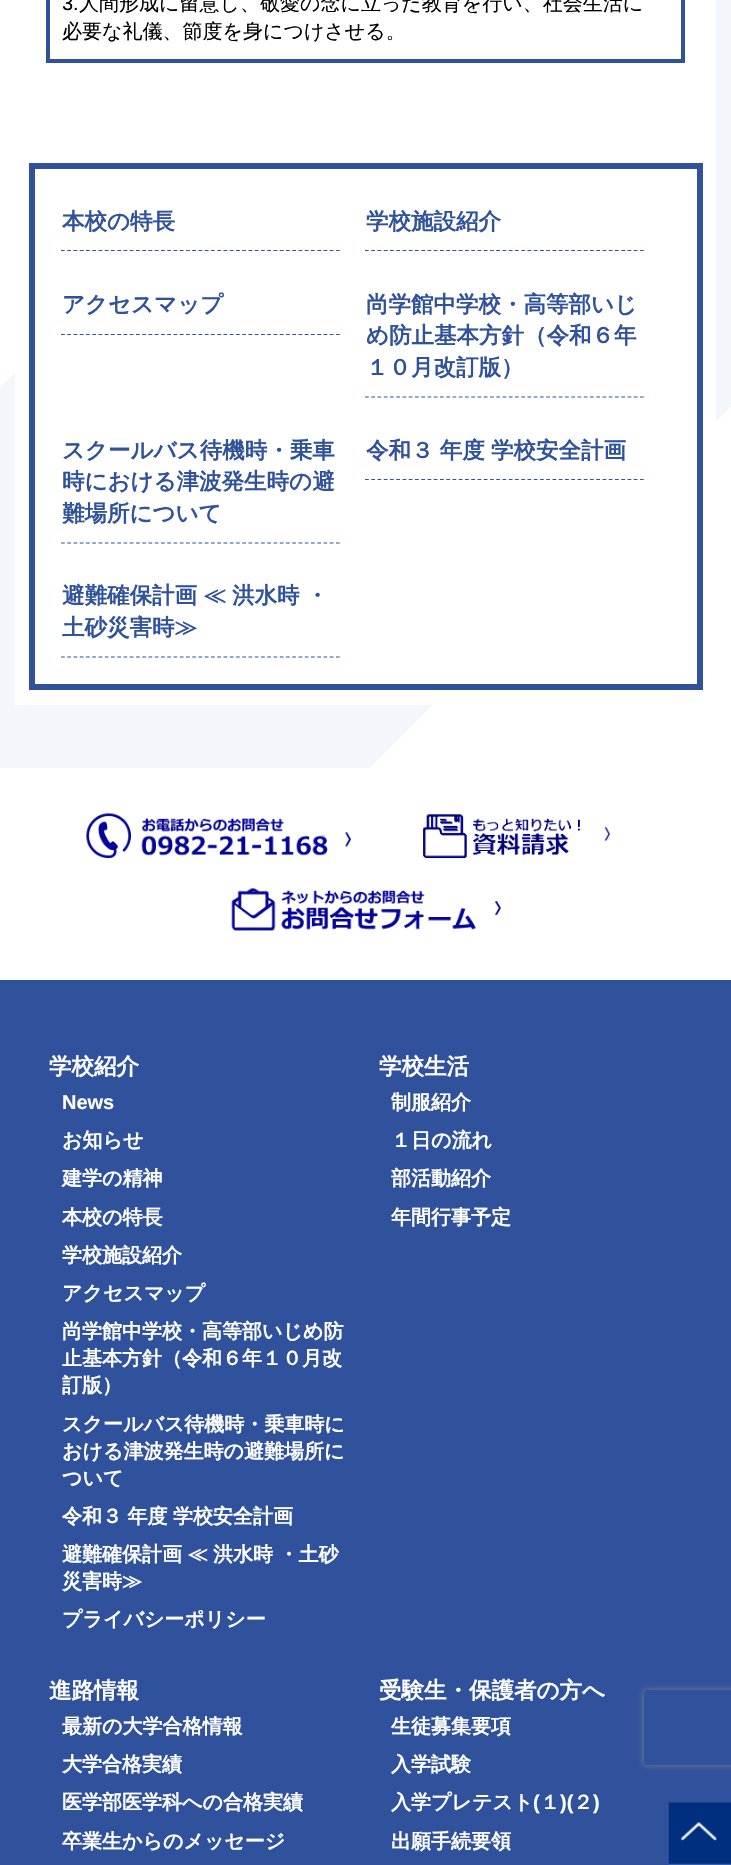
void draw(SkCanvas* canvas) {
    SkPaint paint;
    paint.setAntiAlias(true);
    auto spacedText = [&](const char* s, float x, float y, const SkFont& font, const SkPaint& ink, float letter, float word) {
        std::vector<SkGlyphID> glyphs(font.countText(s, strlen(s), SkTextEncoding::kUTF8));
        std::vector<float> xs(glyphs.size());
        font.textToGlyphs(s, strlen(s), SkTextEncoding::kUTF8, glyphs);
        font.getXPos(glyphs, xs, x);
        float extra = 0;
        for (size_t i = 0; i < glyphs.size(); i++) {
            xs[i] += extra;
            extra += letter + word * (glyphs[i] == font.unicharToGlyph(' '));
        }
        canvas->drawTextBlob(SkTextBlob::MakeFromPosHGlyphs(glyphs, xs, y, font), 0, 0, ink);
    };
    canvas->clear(0xFFFFFFFF);
    {
        const SkColor colors[] = {0xFFF3F7FC, 0xFFFFFFFF, 0xFFFFFFFF, 0xFFF3F7FC, 0xFFF3F7FC, 0xFFFFFFFF, 0xFFFFFFFF};
        const float stops[] = {0.25f, 0.25f, 0.5f, 0.5f, 0.75f, 0.75f, 1};
        const SkPoint ends[] = {{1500, 1138}, {0, -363}};
        paint.setShader(SkGradientShader::MakeLinear(ends, colors, stops, 7, SkTileMode::kClamp));
        paint.setAlpha(255);
    }
    canvas->drawRect(SkRect::MakeXYWH(0, 0, 731, 768), paint);
    paint.setShader(nullptr);
    paint.setColor(0xFFFFFFFF);
    canvas->drawRect(SkRect::MakeXYWH(15, 0, 701, 705), paint);
    paint.setStyle(SkPaint::kStroke_Style);
    paint.setStrokeWidth(4);
    paint.setColor(0xFF30529C);
    canvas->drawRect(SkRect::MakeXYWH(48, -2, 635, 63), paint);
    SkFont font1(fontMgr->matchFamilyStyle("Liberation Sans", SkFontStyle::Normal()), 20);
    font1.setSubpixel(true);
    paint.setStyle(SkPaint::kFill_Style);
    paint.setColor(0xFF000000);
    canvas->drawString("3.", 62, 10, font1, paint);
    SkFont font2(fontMgr->matchFamilyStyle("WenQuanYi Zen Hei", SkFontStyle(500, SkFontStyle::kNormal_Width, SkFontStyle::kUpright_Slant)), 20);
    font2.setSubpixel(true);
    canvas->drawString("人間形成に留意し、敬愛の念に立った教育を行い、社会生活に", 79, 10, font2, paint);
    canvas->drawString("必要な礼儀、節度を身につけさせる。", 62, 38, font2, paint);
    paint.setStyle(SkPaint::kStroke_Style);
    paint.setStrokeWidth(6);
    paint.setColor(0xFF30529C);
    canvas->drawRect(SkRect::MakeXYWH(32, 166, 668, 521), paint);
    paint.setStrokeWidth(1.2f);
    paint.setPathEffect(SkDashPathEffect::Make({{3.75f, 2.5f}}, 0));
    canvas->drawPath(SkPathBuilder().moveTo(61, 250.5f).lineTo(340, 250.5f).detach(), paint);
    paint.setPathEffect(nullptr);
    SkFont font3(fontMgr->matchFamilyStyle("WenQuanYi Zen Hei", SkFontStyle::Bold()), 22.5f);
    font3.setSubpixel(true);
    paint.setStyle(SkPaint::kFill_Style);
    canvas->drawString("本校の特長", 62, 229, font3, paint);
    paint.setStyle(SkPaint::kStroke_Style);
    paint.setPathEffect(SkDashPathEffect::Make({{3.75f, 2.5f}}, 0));
    canvas->drawPath(SkPathBuilder().moveTo(365, 250.5f).lineTo(644, 250.5f).detach(), paint);
    paint.setPathEffect(nullptr);
    paint.setStyle(SkPaint::kFill_Style);
    canvas->drawString("学校施設紹介", 366, 229, font3, paint);
    paint.setStyle(SkPaint::kStroke_Style);
    paint.setPathEffect(SkDashPathEffect::Make({{3.75f, 2.5f}}, 0));
    canvas->drawPath(SkPathBuilder().moveTo(61, 334.5f).lineTo(340, 334.5f).detach(), paint);
    paint.setPathEffect(nullptr);
    paint.setStyle(SkPaint::kFill_Style);
    canvas->drawString("アクセスマップ", 62, 312, font3, paint);
    paint.setStyle(SkPaint::kStroke_Style);
    paint.setPathEffect(SkDashPathEffect::Make({{3.75f, 2.5f}}, 0));
    canvas->drawPath(SkPathBuilder().moveTo(365, 397).lineTo(644, 397).detach(), paint);
    paint.setPathEffect(nullptr);
    paint.setStyle(SkPaint::kFill_Style);
    canvas->drawString("尚学館中学校・高等部いじ", 366, 312, font3, paint);
    canvas->drawString("め防止基本方針（令和６年", 366, 343, font3, paint);
    canvas->drawString("１０月改訂版）", 366, 375, font3, paint);
    paint.setStyle(SkPaint::kStroke_Style);
    paint.setPathEffect(SkDashPathEffect::Make({{3.75f, 2.5f}}, 0));
    canvas->drawPath(SkPathBuilder().moveTo(61, 543).lineTo(340, 543).detach(), paint);
    paint.setPathEffect(nullptr);
    paint.setStyle(SkPaint::kFill_Style);
    canvas->drawString("スクールバス待機時・乗車", 62, 458, font3, paint);
    canvas->drawString("時における津波発生時の避", 62, 489, font3, paint);
    canvas->drawString("難場所について", 62, 521, font3, paint);
    paint.setStyle(SkPaint::kStroke_Style);
    paint.setPathEffect(SkDashPathEffect::Make({{3.75f, 2.5f}}, 0));
    canvas->drawPath(SkPathBuilder().moveTo(365, 479.5f).lineTo(644, 479.5f).detach(), paint);
    paint.setPathEffect(nullptr);
    paint.setStyle(SkPaint::kFill_Style);
    spacedText("令和３ 年度 学校安全計画", 366, 458, font3, paint, 0, -0.5f);
    paint.setStyle(SkPaint::kStroke_Style);
    paint.setPathEffect(SkDashPathEffect::Make({{3.75f, 2.5f}}, 0));
    canvas->drawPath(SkPathBuilder().moveTo(61, 657).lineTo(340, 657).detach(), paint);
    paint.setPathEffect(nullptr);
    paint.setStyle(SkPaint::kFill_Style);
    spacedText("避難確保計画 ≪ 洪水時 ・", 62, 603, font3, paint, 0, -0.5f);
    canvas->drawString("土砂災害時≫", 62, 635, font3, paint);
    canvas->drawImageRect(SkImages::DeferredFromEncodedData(SkData::MakeFromFileName("img1.png")), SkRect::MakeXYWH(86, 813, 265, 46), SkSamplingOptions());
    canvas->drawImageRect(SkImages::DeferredFromEncodedData(SkData::MakeFromFileName("img2.png")), SkRect::MakeXYWH(423, 814, 188, 45), SkSamplingOptions());
    canvas->drawImageRect(SkImages::DeferredFromEncodedData(SkData::MakeFromFileName("img3.png")), SkRect::MakeXYWH(231, 888, 270, 43), SkSamplingOptions());
    canvas->drawRect(SkRect::MakeXYWH(0, 980, 731, 885), paint);
    paint.setColor(0xFFFFFFFF);
    canvas->drawString("学校紹介", 49, 1074, font3, paint);
    SkFont font4(fontMgr->matchFamilyStyle("Liberation Sans", SkFontStyle::Bold()), 20);
    font4.setSubpixel(true);
    canvas->drawString("News", 62, 1109, font4, paint);
    SkFont font5(fontMgr->matchFamilyStyle("WenQuanYi Zen Hei", SkFontStyle::Bold()), 20);
    font5.setSubpixel(true);
    canvas->drawString("お知らせ", 62, 1147, font5, paint);
    canvas->drawString("建学の精神", 62, 1185, font5, paint);
    canvas->drawString("本校の特長", 62, 1224, font5, paint);
    canvas->drawString("学校施設紹介", 62, 1262, font5, paint);
    canvas->drawString("アクセスマップ", 62, 1300, font5, paint);
    canvas->drawString("尚学館中学校・高等部いじめ防", 62, 1338, font5, paint);
    canvas->drawString("止基本方針（令和６年１０月改", 62, 1365, font5, paint);
    canvas->drawString("訂版）", 62, 1392, font5, paint);
    canvas->drawString("スクールバス待機時・乗車時に", 62, 1431, font5, paint);
    canvas->drawString("おける津波発生時の避難場所に", 62, 1458, font5, paint);
    canvas->drawString("ついて", 62, 1485, font5, paint);
    spacedText("令和３ 年度 学校安全計画", 62, 1523, font5, paint, 0, -0.5f);
    spacedText("避難確保計画 ≪ 洪水時 ・土砂", 62, 1561, font5, paint, 0, -0.5f);
    canvas->drawString("災害時≫", 62, 1588, font5, paint);
    canvas->drawString("プライバシーポリシー", 62, 1626, font5, paint);
    canvas->drawString("学校生活", 379, 1074, font3, paint);
    canvas->drawString("制服紹介", 391, 1109, font5, paint);
    canvas->drawString("１日の流れ", 391, 1147, font5, paint);
    canvas->drawString("部活動紹介", 391, 1185, font5, paint);
    canvas->drawString("年間行事予定", 391, 1224, font5, paint);
    canvas->drawString("進路情報", 49, 1698, font3, paint);
    canvas->drawString("最新の大学合格情報", 62, 1733, font5, paint);
    canvas->drawString("大学合格実績", 62, 1771, font5, paint);
    canvas->drawString("医学部医学科への合格実績", 62, 1809, font5, paint);
    canvas->drawString("卒業生からのメッセージ", 62, 1848, font5, paint);
    canvas->drawString("受験生・保護者の方へ", 379, 1698, font3, paint);
    canvas->drawString("生徒募集要項", 391, 1733, font5, paint);
    canvas->drawString("入学試験", 391, 1771, font5, paint);
    canvas->drawString("入学プレテスト", 391, 1809, font5, paint);
    canvas->drawString("(", 533, 1809, font4, paint);
    canvas->drawString("１", 540, 1809, font5, paint);
    canvas->drawString(")(", 560, 1809, font4, paint);
    canvas->drawString("２", 573, 1809, font5, paint);
    canvas->drawString(")", 593, 1809, font4, paint);
    canvas->drawString("出願手続要領", 391, 1848, font5, paint);
    canvas->save();
    canvas->clipPath(SkPathBuilder(SkPathFillType::kEvenOdd).moveTo(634, 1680).lineTo(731, 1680).lineTo(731, 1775).lineTo(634, 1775).close().moveTo(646.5f, 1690).lineTo(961.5f, 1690).cubicTo(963, 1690, 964, 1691, 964, 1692.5f).lineTo(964, 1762.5f).cubicTo(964, 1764, 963, 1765, 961.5f, 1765).lineTo(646.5f, 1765).cubicTo(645, 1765, 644, 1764, 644, 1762.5f).lineTo(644, 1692.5f).cubicTo(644, 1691, 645, 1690, 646.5f, 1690).close().detach(), true);
    paint.setColor(0xFF808080);
    paint.setMaskFilter(SkMaskFilter::MakeBlur(kNormal_SkBlurStyle, 3));
    canvas->drawRoundRect(SkRect::MakeXYWH(644, 1690, 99, 75), 2.5f, 2.5f, paint);
    paint.setMaskFilter(nullptr);
    canvas->restore();
    canvas->drawImageRect(SkImages::DeferredFromEncodedData(SkData::MakeFromFileName("img4.png")), SkRect::MakeXYWH(668, 1802, 63, 63), SkSamplingOptions());
}
